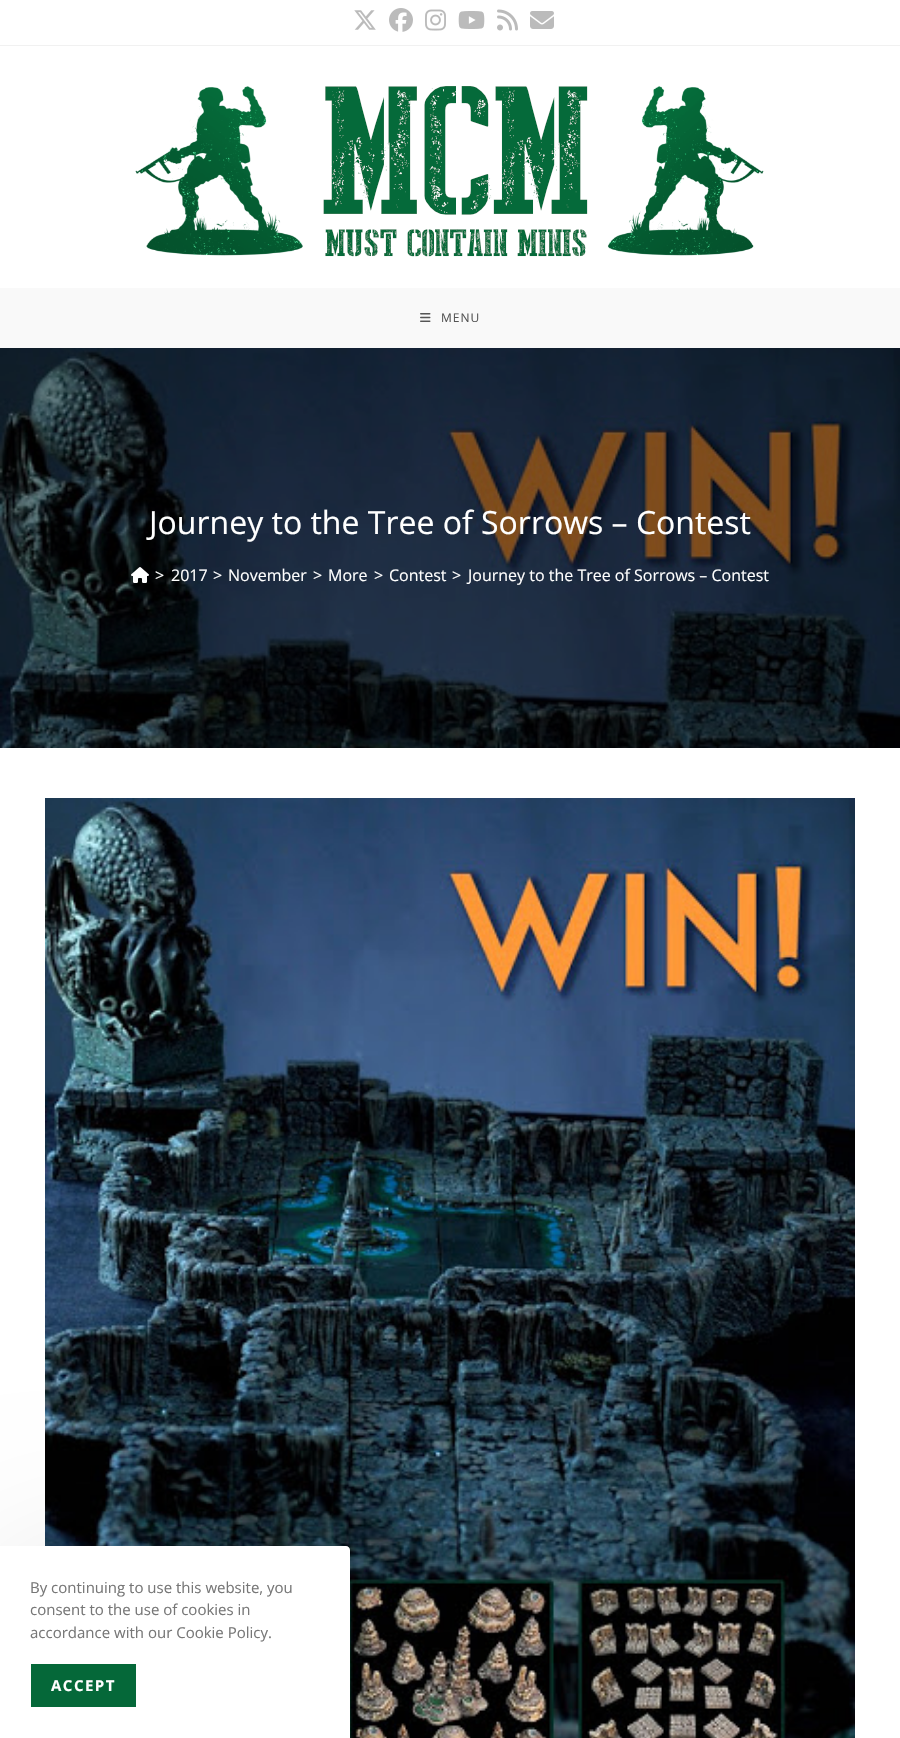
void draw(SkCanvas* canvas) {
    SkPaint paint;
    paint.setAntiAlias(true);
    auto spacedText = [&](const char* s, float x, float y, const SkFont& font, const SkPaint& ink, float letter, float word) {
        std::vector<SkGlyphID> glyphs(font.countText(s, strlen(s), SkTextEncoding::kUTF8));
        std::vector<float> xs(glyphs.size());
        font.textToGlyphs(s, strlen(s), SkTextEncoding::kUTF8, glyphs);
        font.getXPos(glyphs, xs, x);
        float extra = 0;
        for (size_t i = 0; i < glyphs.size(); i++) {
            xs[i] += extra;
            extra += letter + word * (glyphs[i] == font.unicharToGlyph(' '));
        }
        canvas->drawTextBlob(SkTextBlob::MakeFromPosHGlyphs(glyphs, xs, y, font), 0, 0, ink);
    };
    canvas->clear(0xFFFFFFFF);
    paint.setColor(0xFFF1F1F1);
    canvas->drawRect(SkRect::MakeXYWH(0, 45, 900, 1), paint);
    canvas->drawImageRect(SkImages::DeferredFromEncodedData(SkData::MakeFromFileName("img1.png")), SkRect::MakeXYWH(354, 10, 22, 20), SkSamplingOptions());
    canvas->drawImageRect(SkImages::DeferredFromEncodedData(SkData::MakeFromFileName("img2.png")), SkRect::MakeXYWH(389, 8, 24, 24), SkSamplingOptions());
    canvas->drawImageRect(SkImages::DeferredFromEncodedData(SkData::MakeFromFileName("img3.png")), SkRect::MakeXYWH(425, 9, 21, 22), SkSamplingOptions());
    canvas->drawImageRect(SkImages::DeferredFromEncodedData(SkData::MakeFromFileName("img4.png")), SkRect::MakeXYWH(458, 11, 27, 18), SkSamplingOptions());
    canvas->drawImageRect(SkImages::DeferredFromEncodedData(SkData::MakeFromFileName("img5.png")), SkRect::MakeXYWH(497, 9, 21, 22), SkSamplingOptions());
    canvas->drawImageRect(SkImages::DeferredFromEncodedData(SkData::MakeFromFileName("img6.png")), SkRect::MakeXYWH(530, 11, 24, 18), SkSamplingOptions());
    canvas->drawImageRect(SkImages::DeferredFromEncodedData(SkData::MakeFromFileName("img7.png")), SkRect::MakeXYWH(135, 86, 629, 171), SkSamplingOptions());
    paint.setColor(0xFFF9F9F9);
    canvas->drawRect(SkRect::MakeXYWH(0, 288, 900, 60), paint);
    canvas->drawImageRect(SkImages::DeferredFromEncodedData(SkData::MakeFromFileName("img8.png")), SkRect::MakeXYWH(420, 313, 11, 9), SkSamplingOptions());
    SkFont font1(fontMgr->matchFamilyStyle("Open Sans", SkFontStyle::Normal()), 12);
    font1.setSubpixel(true);
    paint.setColor(0xFF555555);
    spacedText("MENU", 441, 322, font1, paint, 1, 0);
    canvas->drawImageRect(SkImages::DeferredFromEncodedData(SkData::MakeFromFileName("img9.png")), SkRect::MakeXYWH(0, 348, 900, 400), SkSamplingOptions());
    SkFont font2(fontMgr->matchFamilyStyle("Open Sans", SkFontStyle::Normal()), 32);
    font2.setSubpixel(true);
    paint.setColor(0xFFFFFFFF);
    canvas->drawString("Journey to the Tree of Sorrows – Contest", 149, 534, font2, paint);
    canvas->drawImageRect(SkImages::DeferredFromEncodedData(SkData::MakeFromFileName("img10.png")), SkRect::MakeXYWH(131, 567, 18, 16), SkSamplingOptions());
    SkFont font3(fontMgr->matchFamilyStyle("Open Sans", SkFontStyle::Normal()), 16);
    font3.setSubpixel(true);
    canvas->drawString(">", 155, 581, font3, paint);
    canvas->drawString("2017", 171, 581, font3, paint);
    canvas->drawString(">", 213, 581, font3, paint);
    canvas->drawString("November", 228, 581, font3, paint);
    canvas->drawString(">", 313, 581, font3, paint);
    canvas->drawString("More", 328, 581, font3, paint);
    canvas->drawString(">", 374, 581, font3, paint);
    canvas->drawString("Contest", 389, 581, font3, paint);
    canvas->drawString(">", 452, 581, font3, paint);
    canvas->drawString("Journey to the Tree of Sorrows – Contest", 468, 581, font3, paint);
    canvas->drawImageRect(SkImages::DeferredFromEncodedData(SkData::MakeFromFileName("img11.png")), SkRect::MakeXYWH(45, 798, 810, 940), SkSamplingOptions());
    paint.setColor(0x1A000000);
    paint.setMaskFilter(SkMaskFilter::MakeBlur(kNormal_SkBlurStyle, 75));
    canvas->drawRoundRect(SkRect::MakeXYWH(0, 1566, 350, 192), 4, 4, paint);
    paint.setMaskFilter(nullptr);
    paint.setColor(0xFFFFFFFF);
    canvas->drawPath(SkPathBuilder().moveTo(0, 1546).lineTo(346, 1546).cubicTo(348, 1546, 350, 1548, 350, 1550).lineTo(350, 1738).lineTo(0, 1738).close().detach(), paint);
    SkFont font4(fontMgr->matchFamilyStyle("Open Sans", SkFontStyle::Normal()), 15);
    font4.setSubpixel(true);
    paint.setColor(0xFF777777);
    canvas->drawString("By continuing to use this website, you", 30, 1593, font4, paint);
    canvas->drawString("consent to the use of cookies in", 30, 1615, font4, paint);
    canvas->drawString("accordance with our Cookie Policy.", 30, 1638, font4, paint);
    paint.setColor(0xFF056839);
    canvas->drawRect(SkRect::MakeXYWH(31, 1664, 105, 43), paint);
    SkFont font5(fontMgr->matchFamilyStyle("Open Sans", SkFontStyle::Bold()), 15);
    font5.setSubpixel(true);
    paint.setColor(0xFFFFFFFF);
    spacedText("ACCEPT", 51, 1691, font5, paint, 1.5f, 0);
}
